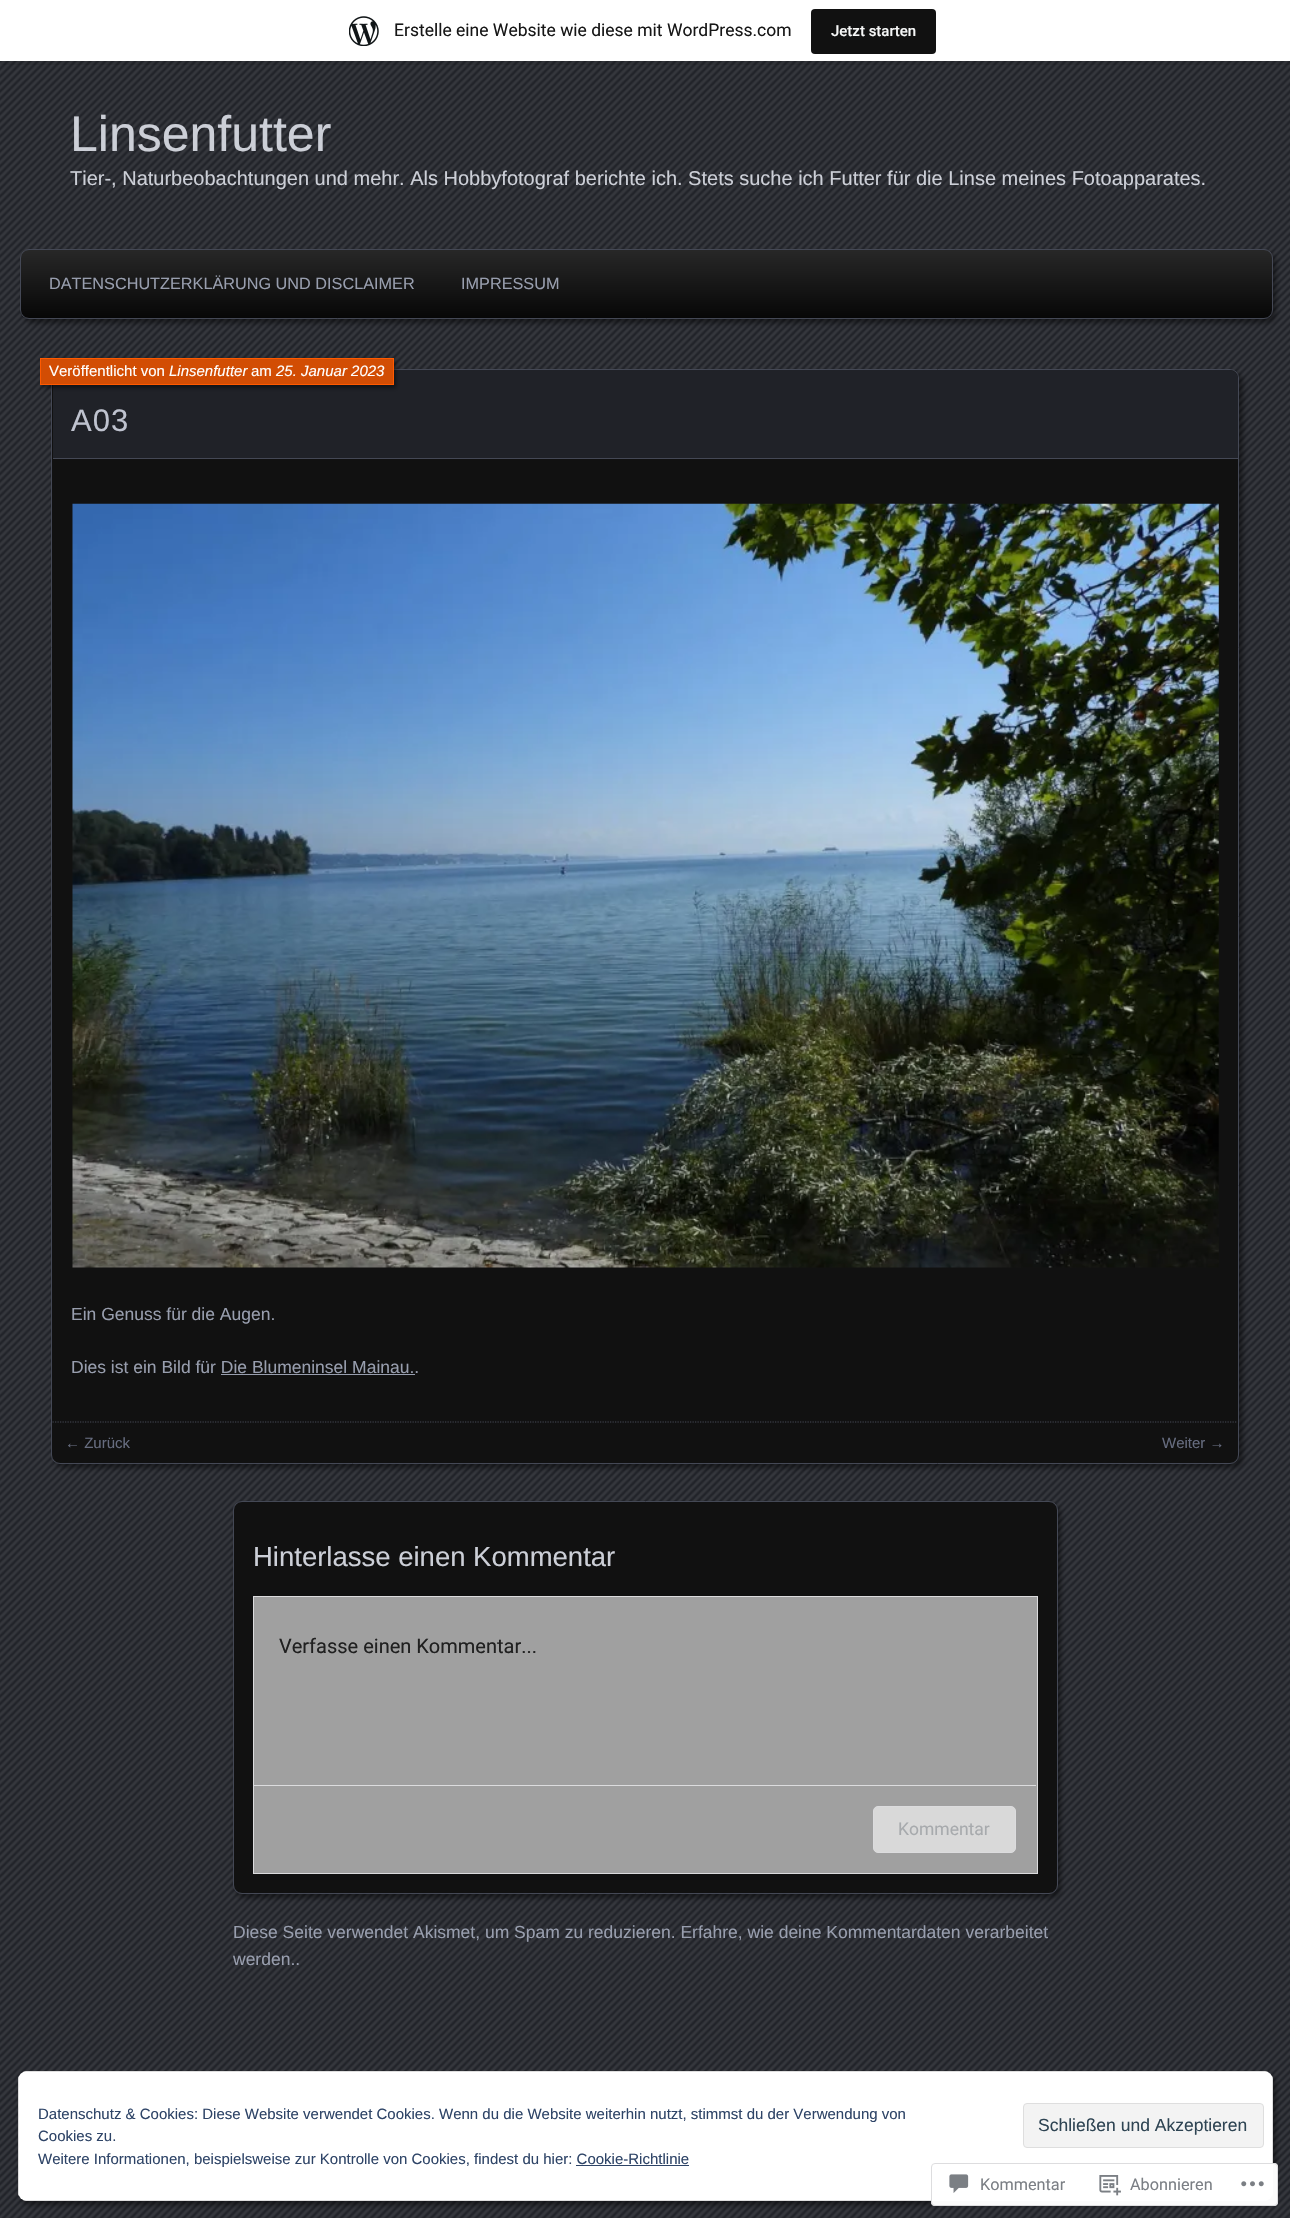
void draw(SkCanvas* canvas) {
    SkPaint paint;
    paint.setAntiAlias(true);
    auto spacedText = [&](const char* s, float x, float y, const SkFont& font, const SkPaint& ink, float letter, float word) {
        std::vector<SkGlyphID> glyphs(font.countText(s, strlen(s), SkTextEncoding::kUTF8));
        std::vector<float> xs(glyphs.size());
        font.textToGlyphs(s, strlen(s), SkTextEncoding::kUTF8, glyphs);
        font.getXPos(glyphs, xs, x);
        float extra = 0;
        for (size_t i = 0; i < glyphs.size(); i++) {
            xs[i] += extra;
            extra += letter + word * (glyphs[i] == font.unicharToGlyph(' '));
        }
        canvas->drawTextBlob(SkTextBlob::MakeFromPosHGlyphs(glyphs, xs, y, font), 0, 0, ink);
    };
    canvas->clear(0xFF202228);
    canvas->drawImageRect(SkImages::DeferredFromEncodedData(SkData::MakeFromFileName("img1.png")), SkRect::MakeXYWH(0, 61, 1290, 2157), SkSamplingOptions());
    paint.setColor(0x14000000);
    canvas->drawPath(SkPathBuilder().moveTo(1, 61).lineTo(1, 65).lineTo(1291, 65).lineTo(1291, 4).lineTo(1290, 4).lineTo(1290, 61).close().detach(), paint);
    paint.setColor(0xFFFFFFFF);
    canvas->drawRect(SkRect::MakeXYWH(0, 0, 1290, 61), paint);
    canvas->drawImageRect(SkImages::DeferredFromEncodedData(SkData::MakeFromFileName("img2.png")), SkRect::MakeXYWH(349, 16, 30, 30), SkSamplingOptions());
    SkFont font1(fontMgr->matchFamilyStyle("Roboto", SkFontStyle::Normal()), 17.5f);
    font1.setSubpixel(true);
    paint.setColor(0xFF171717);
    canvas->drawString("Erstelle eine Website wie diese mit WordPress.com", 394, 36, font1, paint);
    paint.setColor(0xFF111111);
    canvas->drawRoundRect(SkRect::MakeXYWH(811, 9, 125, 45), 4, 4, paint);
    SkFont font2(fontMgr->matchFamilyStyle("Roboto", SkFontStyle(500, SkFontStyle::kNormal_Width, SkFontStyle::kUpright_Slant)), 15);
    font2.setSubpixel(true);
    paint.setColor(0xFFF6F7F7);
    canvas->drawString("Jetzt starten", 831, 36, font2, paint);
    SkFont font3(fontMgr->matchFamilyStyle("Liberation Sans", SkFontStyle::Normal()), 50);
    font3.setSubpixel(true);
    paint.setColor(0xFFCCCFD7);
    canvas->drawString("Linsenfutter", 70, 151, font3, paint);
    SkFont font4(fontMgr->matchFamilyStyle("Liberation Sans", SkFontStyle::Normal()), 20);
    font4.setSubpixel(true);
    canvas->drawString("Tier-, Naturbeobachtungen und mehr. Als Hobbyfotograf berichte ich. Stets suche ich Futter für die Linse meines Fotoapparates.", 70, 185, font4, paint);
    paint.setColor(0x73000000);
    paint.setMaskFilter(SkMaskFilter::MakeBlur(kNormal_SkBlurStyle, 2.5f));
    canvas->drawRoundRect(SkRect::MakeXYWH(24, 253, 1252, 70), 9, 9, paint);
    paint.setMaskFilter(nullptr);
    canvas->save();
    canvas->clipPath(SkPathBuilder().moveTo(29, 249).lineTo(1264, 249).cubicTo(1269, 249, 1273, 253, 1273, 258).lineTo(1273, 310).cubicTo(1273, 315, 1269, 319, 1264, 319).lineTo(29, 319).cubicTo(24, 319, 20, 315, 20, 310).lineTo(20, 258).cubicTo(20, 253, 24, 249, 29, 249).close().detach(), true);
    {
        const SkColor colors[] = {0xFF272727, 0xFF070707};
        const float stops[] = {0.01f, 1};
        const SkPoint ends[] = {{646, 250}, {646, 318}};
        paint.setShader(SkGradientShader::MakeLinear(ends, colors, stops, 2, SkTileMode::kClamp));
        paint.setAlpha(255);
    }
    canvas->drawRect(SkRect::MakeXYWH(20, 250, 1253, 68), paint);
    canvas->restore();
    paint.setStyle(SkPaint::kStroke_Style);
    paint.setStrokeWidth(1);
    paint.setShader(nullptr);
    paint.setColor(0xFF444855);
    canvas->drawRoundRect(SkRect::MakeXYWH(20.5f, 249.5f, 1252, 69), 8.5f, 8.5f, paint);
    SkFont font5(fontMgr->matchFamilyStyle("Liberation Sans", SkFontStyle::Normal()), 16.25f);
    font5.setSubpixel(true);
    paint.setStyle(SkPaint::kFill_Style);
    paint.setColor(0xFF989EAE);
    canvas->drawString("DATENSCHUTZERKLÄRUNG UND DISCLAIMER", 49, 289, font5, paint);
    canvas->drawString("IMPRESSUM", 461, 289, font5, paint);
    paint.setColor(0x73000000);
    paint.setMaskFilter(SkMaskFilter::MakeBlur(kNormal_SkBlurStyle, 2.5f));
    canvas->drawRoundRect(SkRect::MakeXYWH(55, 373, 1188, 1095), 9, 9, paint);
    paint.setMaskFilter(nullptr);
    paint.setColor(0xFF111111);
    canvas->drawRoundRect(SkRect::MakeXYWH(51.5f, 369.5f, 1187, 1094), 8.5f, 8.5f, paint);
    paint.setStyle(SkPaint::kStroke_Style);
    paint.setColor(0xFF444855);
    canvas->drawRoundRect(SkRect::MakeXYWH(51.5f, 369.5f, 1187, 1094), 8.5f, 8.5f, paint);
    paint.setStyle(SkPaint::kFill_Style);
    paint.setColor(0xFF202228);
    canvas->drawPath(SkPathBuilder().moveTo(62, 370).lineTo(1229, 370).cubicTo(1234, 370, 1238, 374, 1238, 379).lineTo(1238, 459).lineTo(53, 459).lineTo(53, 379).cubicTo(53, 374, 57, 370, 62, 370).close().detach(), paint);
    paint.setColor(0xFF444855);
    canvas->drawRect(SkRect::MakeXYWH(53, 458, 1185, 1), paint);
    paint.setColor(0x73000000);
    paint.setMaskFilter(SkMaskFilter::MakeBlur(kNormal_SkBlurStyle, 2));
    canvas->drawRect(SkRect::MakeXYWH(43, 360, 353, 28), paint);
    paint.setMaskFilter(nullptr);
    paint.setColor(0xFFD24D04);
    canvas->drawRect(SkRect::MakeXYWH(40.5f, 358.5f, 353, 26), paint);
    paint.setStyle(SkPaint::kStroke_Style);
    paint.setColor(0xFFFF5A00);
    canvas->drawRect(SkRect::MakeXYWH(40.5f, 358.5f, 353, 26), paint);
    SkFont font6(fontMgr->matchFamilyStyle("Liberation Sans", SkFontStyle::Normal()), 15);
    font6.setSubpixel(true);
    paint.setStyle(SkPaint::kFill_Style);
    paint.setColor(0xFFFFFFFF);
    canvas->drawString("Veröffentlicht von", 49, 376, font6, paint);
    SkFont font7(fontMgr->matchFamilyStyle("Liberation Sans", SkFontStyle::Italic()), 15);
    font7.setSubpixel(true);
    canvas->drawString("Linsenfutter", 169, 376, font7, paint);
    canvas->drawString("am", 251, 376, font6, paint);
    canvas->drawString("25. Januar 2023", 276, 376, font7, paint);
    SkFont font8(fontMgr->matchFamilyStyle("Liberation Sans", SkFontStyle::Normal()), 31);
    font8.setSubpixel(true);
    paint.setColor(0xFFBFC3CF);
    spacedText("A03", 71, 431, font8, paint, 1, 0);
    canvas->drawImageRect(SkImages::DeferredFromEncodedData(SkData::MakeFromFileName("img3.png")), SkRect::MakeXYWH(72, 503, 1147, 765), SkSamplingOptions());
    SkFont font9(fontMgr->matchFamilyStyle("Liberation Sans", SkFontStyle::Normal()), 17.5f);
    font9.setSubpixel(true);
    paint.setColor(0xFF989EAE);
    canvas->drawString("Ein Genuss für die Augen.", 71, 1320, font9, paint);
    canvas->drawString("Dies ist ein Bild für Die Blumeninsel Mainau..", 71, 1373, font9, paint);
    canvas->drawRect(SkRect::MakeXYWH(221, 1374, 194, 1), paint);
    paint.setStyle(SkPaint::kStroke_Style);
    paint.setStrokeWidth(1.2f);
    paint.setColor(0xFF444855);
    paint.setPathEffect(SkDashPathEffect::Make({{1.25f, 1.25f}}, 0));
    canvas->drawPath(SkPathBuilder().moveTo(52.5f, 1422).lineTo(1237.5f, 1422).detach(), paint);
    paint.setPathEffect(nullptr);
    paint.setStyle(SkPaint::kFill_Style);
    paint.setColor(0xFF666C7F);
    canvas->drawString("← Zurück", 65, 1448, font6, paint);
    canvas->drawString("Weiter →", 1162, 1448, font6, paint);
    paint.setColor(0x73000000);
    paint.setMaskFilter(SkMaskFilter::MakeBlur(kNormal_SkBlurStyle, 2.5f));
    canvas->drawRoundRect(SkRect::MakeXYWH(236, 1505, 825, 393), 9, 9, paint);
    paint.setMaskFilter(nullptr);
    paint.setColor(0xFF111111);
    canvas->drawRoundRect(SkRect::MakeXYWH(233.5f, 1501.5f, 824, 392), 8.5f, 8.5f, paint);
    paint.setStyle(SkPaint::kStroke_Style);
    paint.setStrokeWidth(1);
    paint.setColor(0xFF444855);
    canvas->drawRoundRect(SkRect::MakeXYWH(233.5f, 1501.5f, 824, 392), 8.5f, 8.5f, paint);
    SkFont font10(fontMgr->matchFamilyStyle("Liberation Sans", SkFontStyle::Normal()), 27.5f);
    font10.setSubpixel(true);
    paint.setStyle(SkPaint::kFill_Style);
    paint.setColor(0xFFCCCFD7);
    canvas->drawString("Hinterlasse einen Kommentar", 253, 1566, font10, paint);
    paint.setColor(0xFFA0A0A0);
    canvas->drawRect(SkRect::MakeXYWH(253.5f, 1596.5f, 784, 277), paint);
    paint.setStyle(SkPaint::kStroke_Style);
    paint.setColor(0xFFDCDCDE);
    canvas->drawRect(SkRect::MakeXYWH(253.5f, 1596.5f, 784, 277), paint);
    SkFont font11(fontMgr->matchFamilyStyle("Roboto", SkFontStyle::Normal()), 20);
    font11.setSubpixel(true);
    paint.setStyle(SkPaint::kFill_Style);
    paint.setColor(0xFF202020);
    canvas->drawString("Verfasse einen Kommentar...", 279, 1653, font11, paint);
    paint.setColor(0xFFDCDCDE);
    canvas->drawRect(SkRect::MakeXYWH(254, 1785, 782, 1), paint);
    paint.setColor(0xFFD9D9D9);
    canvas->drawRoundRect(SkRect::MakeXYWH(873.5f, 1806.5f, 142, 46), 4.5f, 4.5f, paint);
    paint.setStyle(SkPaint::kStroke_Style);
    paint.setColor(0xFFDCDCDE);
    canvas->drawRoundRect(SkRect::MakeXYWH(873.5f, 1806.5f, 142, 46), 4.5f, 4.5f, paint);
    paint.setStyle(SkPaint::kFill_Style);
    paint.setColor(0xFFA7AAAD);
    canvas->drawString("Kommentar", 898, 1835, font1, paint);
    paint.setColor(0xFF989EAE);
    canvas->drawString("Diese Seite verwendet Akismet, um Spam zu reduzieren. Erfahre, wie deine Kommentardaten verarbeitet", 233, 1938, font9, paint);
    canvas->drawString("werden..", 233, 1965, font9, paint);
    paint.setColor(0x73000000);
    paint.setMaskFilter(SkMaskFilter::MakeBlur(kNormal_SkBlurStyle, 2.5f));
    canvas->drawRoundRect(SkRect::MakeXYWH(21, 2075, 1255, 130), 9, 9, paint);
    paint.setMaskFilter(nullptr);
    paint.setColor(0xFFFFFFFF);
    canvas->drawRoundRect(SkRect::MakeXYWH(18, 2071, 1255, 130), 9, 9, paint);
    paint.setColor(0xFFDEDEDE);
    canvas->drawPath(SkPathBuilder(SkPathFillType::kEvenOdd).moveTo(18, 2080).lineTo(18, 2192).cubicTo(18, 2193, 18, 2195, 19, 2196).lineTo(19, 2076).close().moveTo(27, 2071).lineTo(23, 2072).lineTo(1268, 2072).lineTo(1264, 2071).close().moveTo(1273, 2080).lineTo(1272, 2076).lineTo(1272, 2196).cubicTo(1273, 2195, 1273, 2193, 1273, 2192).close().moveTo(1264, 2201).lineTo(1268, 2200).lineTo(23, 2200).lineTo(27, 2201).close().detach(), paint);
    paint.setColor(0xFF2E4467);
    canvas->drawString("Datenschutz & Cookies: Diese Website verwendet Cookies. Wenn du die Website weiterhin nutzt, stimmst du der Verwendung von", 38, 2119, font6, paint);
    canvas->drawString("Cookies zu.", 38, 2141, font6, paint);
    paint.setColor(0xFFF3F3F3);
    canvas->drawRoundRect(SkRect::MakeXYWH(1023.5f, 2103.5f, 240, 44), 3.5f, 3.5f, paint);
    paint.setStyle(SkPaint::kStroke_Style);
    paint.setColor(0xFFDEDEDE);
    canvas->drawRoundRect(SkRect::MakeXYWH(1023.5f, 2103.5f, 240, 44), 3.5f, 3.5f, paint);
    paint.setStyle(SkPaint::kFill_Style);
    paint.setColor(0xFF2E4453);
    canvas->drawString("Schließen und Akzeptieren", 1038, 2131, font9, paint);
    paint.setColor(0xFF2E4467);
    canvas->drawString("Weitere Informationen, beispielsweise zur Kontrolle von Cookies, findest du hier: Cookie-Richtlinie", 38, 2164, font6, paint);
    canvas->drawRect(SkRect::MakeXYWH(576, 2165, 113, 1), paint);
    paint.setColor(0xFAFFFFFF);
    canvas->drawRoundRect(SkRect::MakeXYWH(931, 2163, 347, 43), 4, 4, paint);
    paint.setStyle(SkPaint::kStroke_Style);
    paint.setColor(0xFADCDCDE);
    canvas->drawRoundRect(SkRect::MakeXYWH(931.5f, 2163.5f, 346, 42), 3.5f, 3.5f, paint);
    canvas->drawImageRect(SkImages::DeferredFromEncodedData(SkData::MakeFromFileName("img4.png")), SkRect::MakeXYWH(949, 2174, 20, 19), SkSamplingOptions());
    SkFont font12(fontMgr->matchFamilyStyle("Roboto", SkFontStyle::Normal()), 16.25f);
    font12.setSubpixel(true);
    paint.setStyle(SkPaint::kFill_Style);
    paint.setColor(0xFF7B7F85);
    canvas->drawString("Kommentar", 980, 2190, font12, paint);
    canvas->drawImageRect(SkImages::DeferredFromEncodedData(SkData::MakeFromFileName("img5.png")), SkRect::MakeXYWH(1099, 2175, 22, 21), SkSamplingOptions());
    canvas->drawString("Abonnieren", 1130, 2190, font12, paint);
    canvas->drawImageRect(SkImages::DeferredFromEncodedData(SkData::MakeFromFileName("img6.png")), SkRect::MakeXYWH(1241, 2181, 23, 6), SkSamplingOptions());
}
